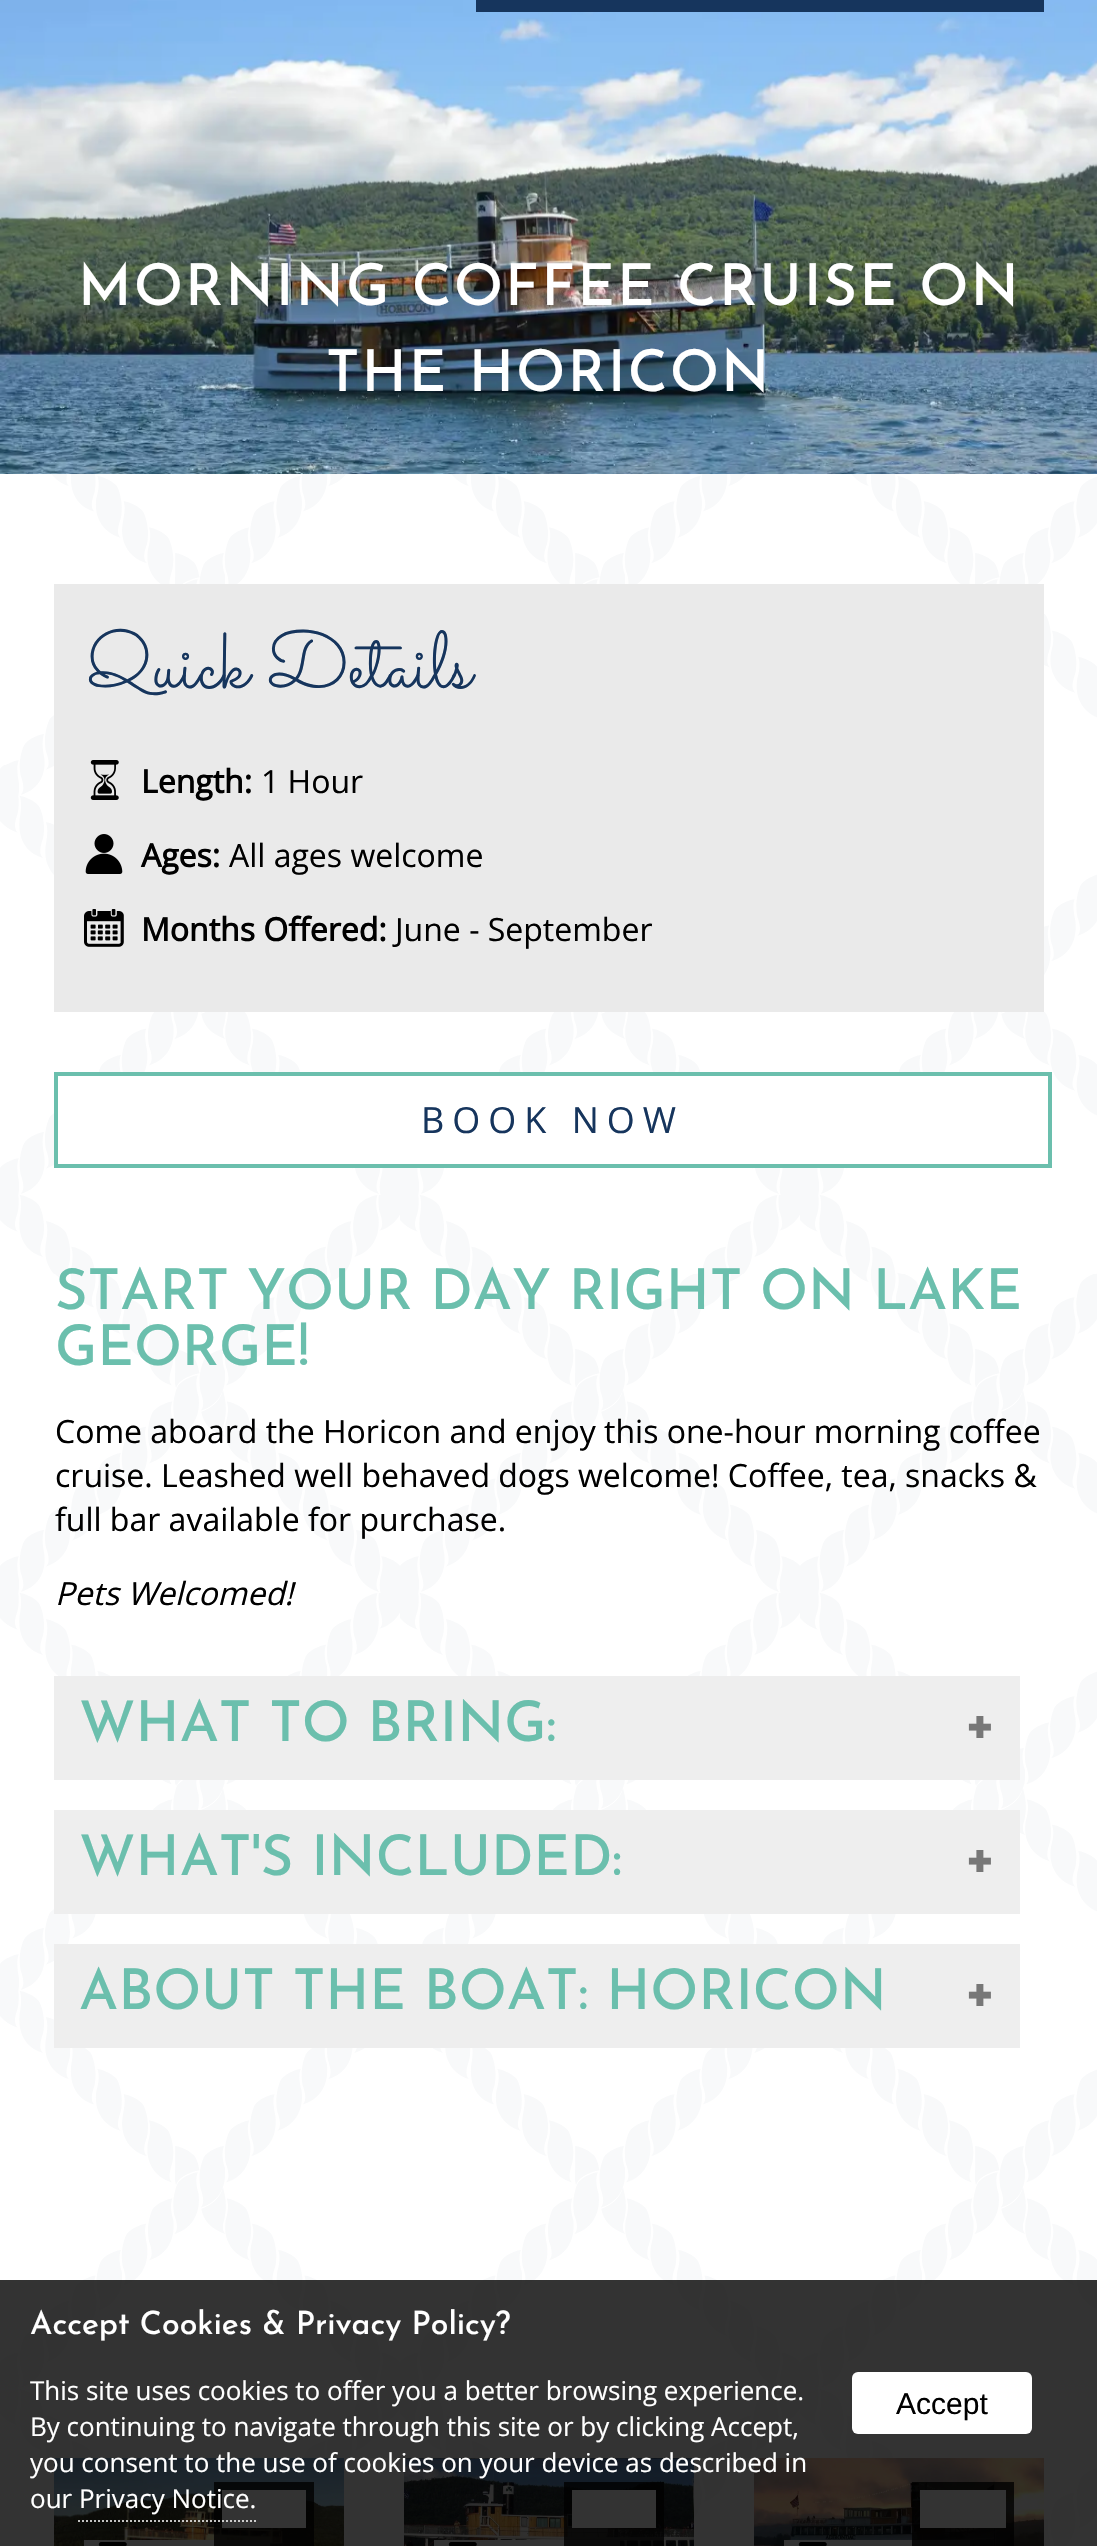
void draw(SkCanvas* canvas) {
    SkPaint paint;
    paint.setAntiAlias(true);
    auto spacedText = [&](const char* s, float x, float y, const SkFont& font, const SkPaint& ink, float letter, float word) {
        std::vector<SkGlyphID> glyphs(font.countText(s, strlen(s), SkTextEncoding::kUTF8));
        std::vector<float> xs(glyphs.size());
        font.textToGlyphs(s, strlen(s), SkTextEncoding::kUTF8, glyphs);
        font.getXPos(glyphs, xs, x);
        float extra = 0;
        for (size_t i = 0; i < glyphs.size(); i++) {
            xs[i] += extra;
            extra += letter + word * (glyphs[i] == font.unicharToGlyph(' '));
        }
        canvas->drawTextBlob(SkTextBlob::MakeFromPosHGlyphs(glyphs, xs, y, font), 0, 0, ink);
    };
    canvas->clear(0xFFFFFFFF);
    canvas->drawImageRect(SkImages::DeferredFromEncodedData(SkData::MakeFromFileName("img1.png")), SkRect::MakeXYWH(0, 0, 1097, 474), SkSamplingOptions());
    paint.setColor(0xFF16355D);
    canvas->drawRect(SkRect::MakeXYWH(476, 0, 568, 12), paint);
    SkFont font1(fontMgr->matchFamilyStyle("Josefin Sans", SkFontStyle(100, SkFontStyle::kNormal_Width, SkFontStyle::kUpright_Slant)), 57.6f);
    font1.setSubpixel(true);
    paint.setColor(0xFFFFFFFF);
    spacedText("MORNING COFFEE CRUISE ON", 78, 305, font1, paint, 2, 0);
    spacedText("THE HORICON", 326, 391, font1, paint, 2, 0);
    canvas->drawImageRect(SkImages::DeferredFromEncodedData(SkData::MakeFromFileName("img2.png")), SkRect::MakeXYWH(0, 474, 1097, 1728), SkSamplingOptions());
    paint.setColor(0xFFEAEAEA);
    canvas->drawRect(SkRect::MakeXYWH(54, 584, 990, 428), paint);
    SkFont font2(fontMgr->matchFamilyStyle("Sacramento", SkFontStyle::Normal()), 80);
    font2.setSubpixel(true);
    paint.setColor(0xFF16355D);
    canvas->drawString("Quick Details", 85, 687, font2, paint);
    canvas->drawImageRect(SkImages::DeferredFromEncodedData(SkData::MakeFromFileName("img3.png")), SkRect::MakeXYWH(90, 760, 29, 40), SkSamplingOptions());
    SkFont font3(fontMgr->matchFamilyStyle("Open Sans", SkFontStyle::Bold()), 32);
    font3.setSubpixel(true);
    paint.setColor(0xFF000000);
    canvas->drawString("Length:", 141, 793, font3, paint);
    SkFont font4(fontMgr->matchFamilyStyle("Open Sans", SkFontStyle::Normal()), 32);
    font4.setSubpixel(true);
    canvas->drawString("1 Hour", 261, 793, font4, paint);
    canvas->drawImageRect(SkImages::DeferredFromEncodedData(SkData::MakeFromFileName("img4.png")), SkRect::MakeXYWH(85, 834, 38, 40), SkSamplingOptions());
    canvas->drawString("Ages:", 141, 867, font3, paint);
    canvas->drawString("All ages welcome", 229, 867, font4, paint);
    canvas->drawImageRect(SkImages::DeferredFromEncodedData(SkData::MakeFromFileName("img5.png")), SkRect::MakeXYWH(84, 909, 40, 38), SkSamplingOptions());
    canvas->drawString("Months Offered:", 141, 941, font3, paint);
    canvas->drawString("June - September", 395, 941, font4, paint);
    paint.setColor(0xE6FFFFFF);
    canvas->drawRect(SkRect::MakeXYWH(58, 1076, 884, 88), paint);
    paint.setStyle(SkPaint::kStroke_Style);
    paint.setStrokeWidth(4);
    paint.setColor(0xFF6BBFAD);
    canvas->drawRect(SkRect::MakeXYWH(56, 1074, 994, 92), paint);
    SkFont font5(fontMgr->matchFamilyStyle("Open Sans", SkFontStyle::Normal()), 36);
    font5.setSubpixel(true);
    paint.setStyle(SkPaint::kFill_Style);
    paint.setColor(0xFF16355D);
    spacedText("BOOK NOW", 421, 1133, font5, paint, 8, 0);
    SkFont font6(fontMgr->matchFamilyStyle("Josefin Sans", SkFontStyle(100, SkFontStyle::kNormal_Width, SkFontStyle::kUpright_Slant)), 56);
    font6.setSubpixel(true);
    paint.setColor(0xFF6BBFAD);
    canvas->drawString("START YOUR DAY RIGHT ON LAKE", 55, 1309, font6, paint);
    canvas->drawString("GEORGE!", 55, 1365, font6, paint);
    paint.setColor(0xFF000000);
    canvas->drawString("Come aboard the Horicon and enjoy this one-hour morning coffee", 55, 1443, font4, paint);
    canvas->drawString("cruise. Leashed well behaved dogs welcome! Coffee, tea, snacks &", 55, 1487, font4, paint);
    canvas->drawString("full bar available for purchase.", 55, 1531, font4, paint);
    SkFont font7(fontMgr->matchFamilyStyle("Open Sans", SkFontStyle::Italic()), 32);
    font7.setSubpixel(true);
    canvas->drawString("Pets Welcomed!", 55, 1605, font7, paint);
    paint.setColor(0xFFEEEEEE);
    canvas->drawRect(SkRect::MakeXYWH(54, 1676, 966, 104), paint);
    paint.setColor(0xFF6BBFAD);
    canvas->drawString("WHAT TO BRING:", 79, 1741, font6, paint);
    SkFont font8(fontMgr->matchFamilyStyle("Josefin Sans", SkFontStyle::Bold()), 56);
    font8.setSubpixel(true);
    paint.setColor(0xFF777777);
    canvas->drawString("+", 964, 1741, font8, paint);
    paint.setColor(0xFFEEEEEE);
    canvas->drawRect(SkRect::MakeXYWH(54, 1810, 966, 104), paint);
    paint.setColor(0xFF6BBFAD);
    canvas->drawString("WHAT'S INCLUDED:", 79, 1875, font6, paint);
    paint.setColor(0xFF777777);
    canvas->drawString("+", 964, 1875, font8, paint);
    paint.setColor(0xFFEEEEEE);
    canvas->drawRect(SkRect::MakeXYWH(54, 1944, 966, 104), paint);
    paint.setColor(0xFF6BBFAD);
    canvas->drawString("ABOUT THE BOAT: HORICON", 79, 2009, font6, paint);
    paint.setColor(0xFF777777);
    canvas->drawString("+", 964, 2009, font8, paint);
    canvas->drawImageRect(SkImages::DeferredFromEncodedData(SkData::MakeFromFileName("img6.png")), SkRect::MakeXYWH(0, 2202, 1097, 344), SkSamplingOptions());
    canvas->drawImageRect(SkImages::DeferredFromEncodedData(SkData::MakeFromFileName("img7.png")), SkRect::MakeXYWH(54, 2458, 290, 88), SkSamplingOptions());
    paint.setColor(0xFFFFFFFF);
    canvas->drawRect(SkRect::MakeXYWH(84, 2540, 186, 6), paint);
    paint.setColor(0xCC000000);
    canvas->drawRect(SkRect::MakeXYWH(214, 2482, 100, 64), paint);
    paint.setColor(0xFFFFFFFF);
    canvas->drawRect(SkRect::MakeXYWH(222, 2490, 84, 38), paint);
    canvas->drawImageRect(SkImages::DeferredFromEncodedData(SkData::MakeFromFileName("img8.png")), SkRect::MakeXYWH(98, 2542, 29, 4), SkSamplingOptions());
    canvas->drawImageRect(SkImages::DeferredFromEncodedData(SkData::MakeFromFileName("img9.png")), SkRect::MakeXYWH(404, 2458, 290, 88), SkSamplingOptions());
    canvas->drawRect(SkRect::MakeXYWH(434, 2540, 186, 6), paint);
    paint.setColor(0xCC000000);
    canvas->drawRect(SkRect::MakeXYWH(564, 2482, 100, 64), paint);
    paint.setColor(0xFFFFFFFF);
    canvas->drawRect(SkRect::MakeXYWH(572, 2490, 84, 38), paint);
    canvas->drawImageRect(SkImages::DeferredFromEncodedData(SkData::MakeFromFileName("img8.png")), SkRect::MakeXYWH(448, 2542, 29, 4), SkSamplingOptions());
    canvas->drawImageRect(SkImages::DeferredFromEncodedData(SkData::MakeFromFileName("img10.png")), SkRect::MakeXYWH(754, 2458, 290, 88), SkSamplingOptions());
    canvas->drawRect(SkRect::MakeXYWH(784, 2540, 186, 6), paint);
    paint.setColor(0xCC000000);
    canvas->drawRect(SkRect::MakeXYWH(912, 2482, 102, 64), paint);
    paint.setColor(0xFFFFFFFF);
    canvas->drawRect(SkRect::MakeXYWH(920, 2490, 86, 38), paint);
    canvas->drawImageRect(SkImages::DeferredFromEncodedData(SkData::MakeFromFileName("img8.png")), SkRect::MakeXYWH(798, 2542, 29, 4), SkSamplingOptions());
    paint.setColor(0xCC000000);
    canvas->drawRect(SkRect::MakeXYWH(0, 2280, 1097, 266), paint);
    SkFont font9(fontMgr->matchFamilyStyle("Josefin Sans", SkFontStyle(100, SkFontStyle::kNormal_Width, SkFontStyle::kUpright_Slant)), 32);
    font9.setSubpixel(true);
    paint.setColor(0xFFFFFFFF);
    canvas->drawString("Accept Cookies & Privacy Policy?", 30, 2334, font9, paint);
    SkFont font10(fontMgr->matchFamilyStyle("Open Sans", SkFontStyle::Normal()), 26);
    font10.setSubpixel(true);
    canvas->drawString("This site uses cookies to offer you a better browsing experience.", 30, 2400, font10, paint);
    canvas->drawString("By continuing to navigate through this site or by clicking Accept,", 30, 2436, font10, paint);
    canvas->drawString("you consent to the use of cookies on your device as described in", 30, 2472, font10, paint);
    canvas->drawString("our Privacy Notice.", 30, 2508, font10, paint);
    paint.setStyle(SkPaint::kStroke_Style);
    paint.setStrokeWidth(2);
    paint.setColor(0xBFFFFFFF);
    paint.setPathEffect(SkDashPathEffect::Make({{2, 2}}, 0));
    canvas->drawPath(SkPathBuilder().moveTo(78, 2521).lineTo(256, 2521).detach(), paint);
    paint.setPathEffect(nullptr);
    paint.setStyle(SkPaint::kFill_Style);
    paint.setColor(0xFFFFFFFF);
    canvas->drawRoundRect(SkRect::MakeXYWH(852, 2372, 180, 62), 6, 6, paint);
    SkFont font11(fontMgr->matchFamilyStyle("Liberation Sans", SkFontStyle::Normal()), 30);
    font11.setSubpixel(true);
    paint.setColor(0xFF000000);
    canvas->drawString("Accept", 896, 2414, font11, paint);
}
